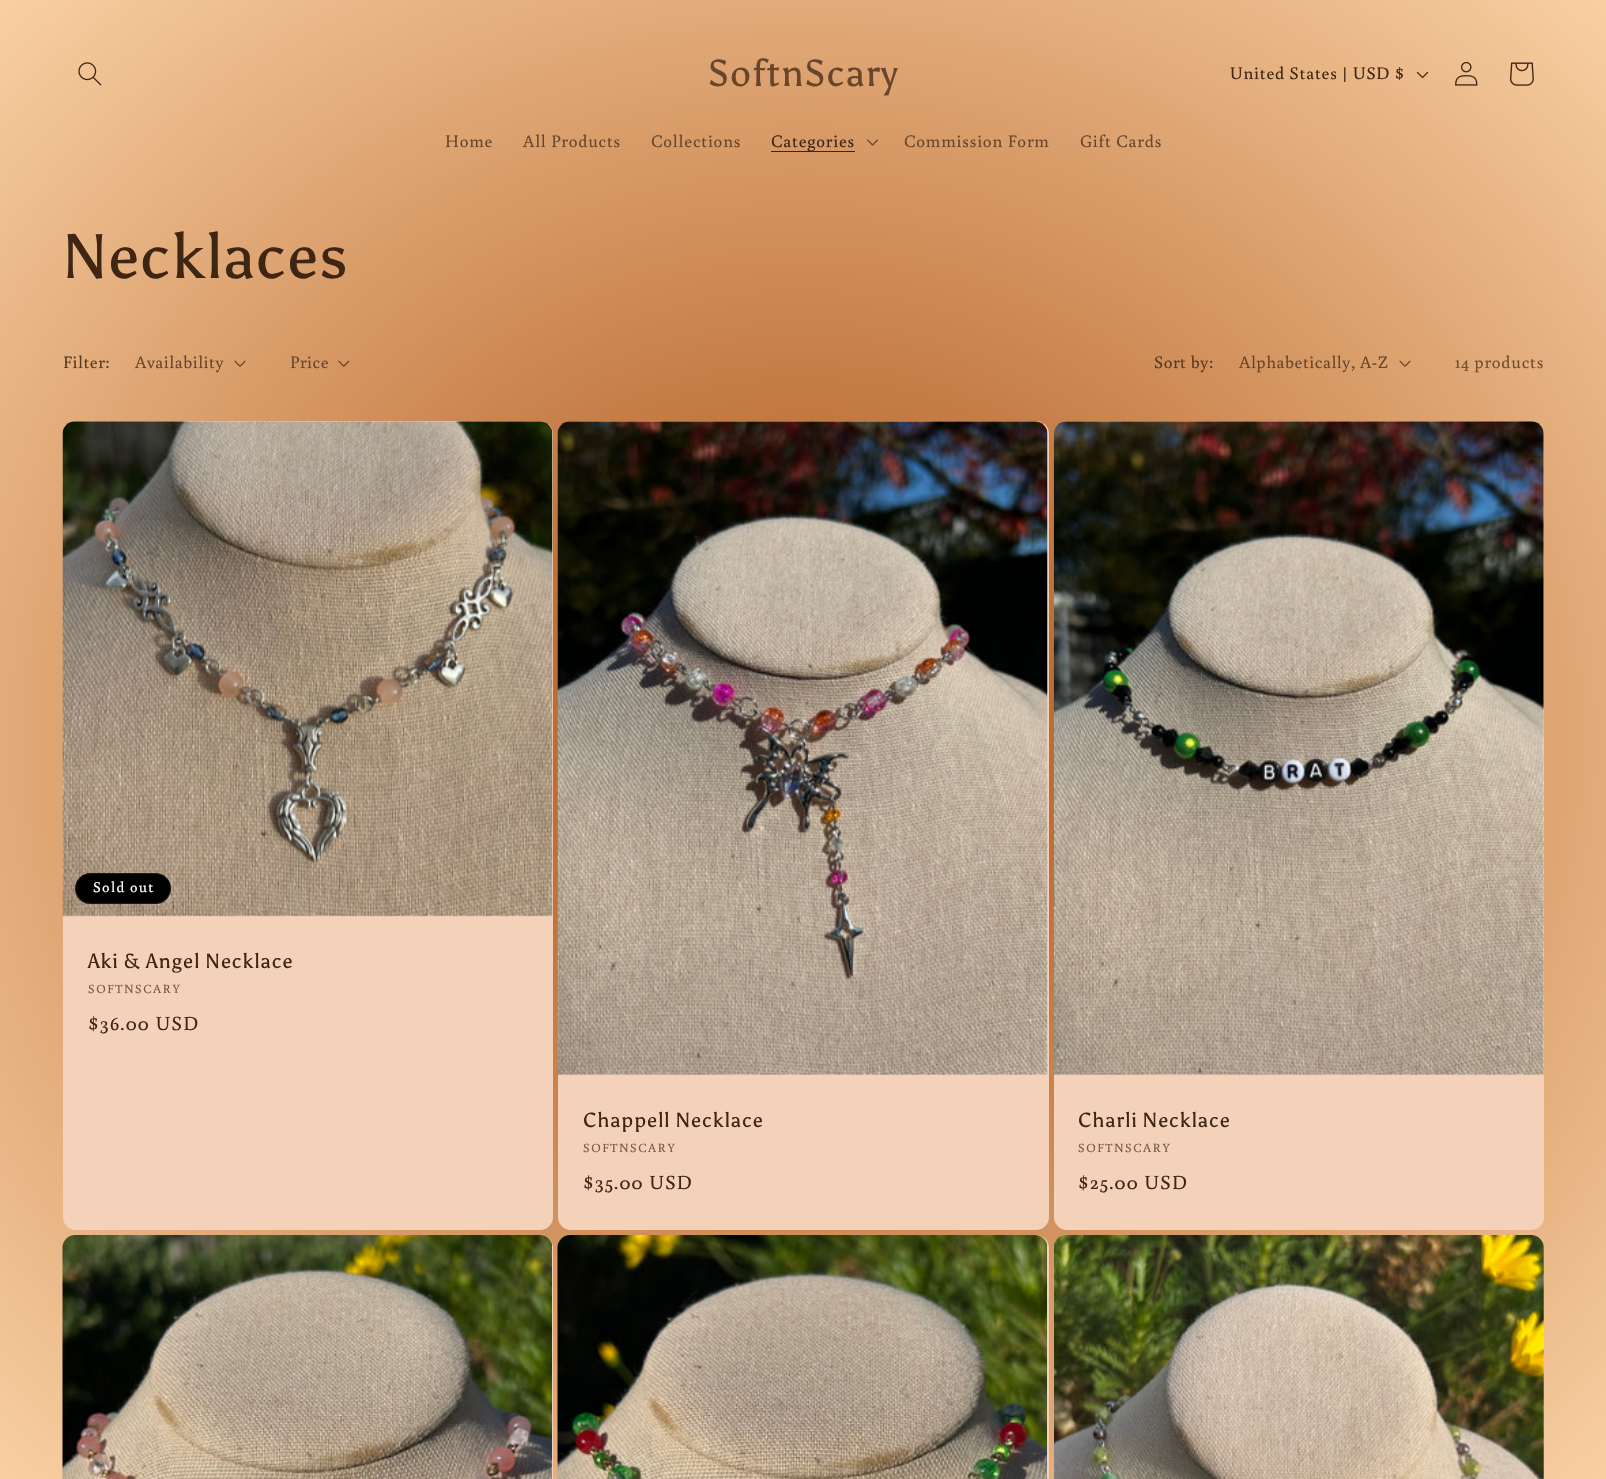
void draw(SkCanvas* canvas) {
    SkPaint paint;
    paint.setAntiAlias(true);
    auto spacedText = [&](const char* s, float x, float y, const SkFont& font, const SkPaint& ink, float letter, float word) {
        std::vector<SkGlyphID> glyphs(font.countText(s, strlen(s), SkTextEncoding::kUTF8));
        std::vector<float> xs(glyphs.size());
        font.textToGlyphs(s, strlen(s), SkTextEncoding::kUTF8, glyphs);
        font.getXPos(glyphs, xs, x);
        float extra = 0;
        for (size_t i = 0; i < glyphs.size(); i++) {
            xs[i] += extra;
            extra += letter + word * (glyphs[i] == font.unicharToGlyph(' '));
        }
        canvas->drawTextBlob(SkTextBlob::MakeFromPosHGlyphs(glyphs, xs, y, font), 0, 0, ink);
    };
    canvas->clear(0xFFFFFFFF);
    {
        const SkColor colors[] = {0xFFAA5115, 0xFFF9D0A3};
        const float stops[] = {0, 1};
        SkMatrix m = SkMatrix::Translate(803, 740).preScale(1136, 1047);
        paint.setShader(SkGradientShader::MakeRadial({0, 0}, 1, colors, stops, 2, SkTileMode::kClamp, 0, &m));
        paint.setAlpha(255);
    }
    canvas->drawRect(SkRect::MakeXYWH(0, 0, 1606, 1479), paint);
    canvas->drawImageRect(SkImages::DeferredFromEncodedData(SkData::MakeFromFileName("img1.png")), SkRect::MakeXYWH(78, 62, 24, 24), SkSamplingOptions());
    SkFont font1(fontMgr->matchFamilyStyle("Asul", SkFontStyle::Normal()), 37.5f);
    font1.setSubpixel(true);
    paint.setShader(nullptr);
    paint.setColor(0xFF67462C);
    spacedText("SoftnScary", 708, 86, font1, paint, 0.9f, 0);
    SkFont font2(fontMgr->matchFamilyStyle("Buenard", SkFontStyle::Normal()), 17.5f);
    font2.setSubpixel(true);
    paint.setColor(0xFF3F2614);
    spacedText("United States | USD $", 1230, 79, font2, paint, 0.75f, 0);
    canvas->drawImageRect(SkImages::DeferredFromEncodedData(SkData::MakeFromFileName("img2.png")), SkRect::MakeXYWH(1416, 71, 13, 8), SkSamplingOptions());
    canvas->drawImageRect(SkImages::DeferredFromEncodedData(SkData::MakeFromFileName("img3.png")), SkRect::MakeXYWH(1455, 61, 23, 25), SkSamplingOptions());
    canvas->drawImageRect(SkImages::DeferredFromEncodedData(SkData::MakeFromFileName("img4.png")), SkRect::MakeXYWH(1510, 62, 24, 24), SkSamplingOptions());
    paint.setColor(0xFF67462C);
    spacedText("Home", 445, 147, font2, paint, 0.75f, 0);
    spacedText("All Products", 523, 147, font2, paint, 0.75f, 0);
    spacedText("Collections", 651, 147, font2, paint, 0.75f, 0);
    paint.setColor(0xFF3F2614);
    canvas->drawRect(SkRect::MakeXYWH(771, 151, 84, 1), paint);
    spacedText("Categories", 771, 147, font2, paint, 0.75f, 0);
    canvas->drawImageRect(SkImages::DeferredFromEncodedData(SkData::MakeFromFileName("img5.png")), SkRect::MakeXYWH(867, 139, 11, 7), SkSamplingOptions());
    paint.setColor(0xFF67462C);
    spacedText("Commission Form", 904, 147, font2, paint, 0.75f, 0);
    spacedText("Gift Cards", 1080, 147, font2, paint, 0.75f, 0);
    SkFont font3(fontMgr->matchFamilyStyle("Asul", SkFontStyle::Normal()), 62.5f);
    font3.setSubpixel(true);
    paint.setColor(0xFF3F2614);
    spacedText("Necklaces", 63, 278, font3, paint, 0.9f, 0);
    paint.setColor(0xFF583A24);
    spacedText("Filter:", 63, 368, font2, paint, 0.5f, 0);
    paint.setColor(0xFF67462C);
    spacedText("Availability", 135, 368, font2, paint, 0.5f, 0);
    canvas->drawImageRect(SkImages::DeferredFromEncodedData(SkData::MakeFromFileName("img6.png")), SkRect::MakeXYWH(234, 360, 12, 7), SkSamplingOptions());
    spacedText("Price", 290, 368, font2, paint, 0.5f, 0);
    canvas->drawImageRect(SkImages::DeferredFromEncodedData(SkData::MakeFromFileName("img7.png")), SkRect::MakeXYWH(338, 360, 12, 7), SkSamplingOptions());
    paint.setColor(0xFF583A24);
    spacedText("Sort by:", 1154, 368, font2, paint, 0.5f, 0);
    paint.setColor(0xFF67462C);
    spacedText("Alphabetically, A-Z", 1239, 368, font2, paint, 0.5f, 0);
    canvas->drawImageRect(SkImages::DeferredFromEncodedData(SkData::MakeFromFileName("img8.png")), SkRect::MakeXYWH(1399, 360, 12, 7), SkSamplingOptions());
    paint.setColor(0xFF704E33);
    spacedText("14 products", 1455, 368, font2, paint, 0.75f, 0);
    paint.setColor(0xFFF4D2BA);
    canvas->drawRoundRect(SkRect::MakeXYWH(63, 421, 490, 809), 13, 13, paint);
    canvas->drawImageRect(SkImages::DeferredFromEncodedData(SkData::MakeFromFileName("img9.png")), SkRect::MakeXYWH(62, 421, 491, 496), SkSamplingOptions());
    paint.setColor(0xFF000000);
    canvas->drawRoundRect(SkRect::MakeXYWH(75, 873, 96, 31), 15.5f, 15.5f, paint);
    paint.setStyle(SkPaint::kStroke_Style);
    paint.setStrokeWidth(1);
    paint.setColor(0x1AFFFFFF);
    canvas->drawRoundRect(SkRect::MakeXYWH(75.5f, 873.5f, 95, 30), 15, 15, paint);
    SkFont font4(fontMgr->matchFamilyStyle("Buenard", SkFontStyle::Normal()), 15);
    font4.setSubpixel(true);
    paint.setStyle(SkPaint::kFill_Style);
    paint.setColor(0xFFFFFFFF);
    spacedText("Sold out", 93, 892, font4, paint, 1.25f, 0);
    SkFont font5(fontMgr->matchFamilyStyle("Asul", SkFontStyle::Normal()), 20.25f);
    font5.setSubpixel(true);
    paint.setColor(0xFF3F2614);
    spacedText("Aki & Angel Necklace", 88, 968, font5, paint, 0.9f, 0);
    SkFont font6(fontMgr->matchFamilyStyle("Buenard", SkFontStyle::Normal()), 12.5f);
    font6.setSubpixel(true);
    paint.setColor(0xFF755A46);
    spacedText("SOFTNSCARY", 88, 993, font6, paint, 1.6f, 0);
    SkFont font7(fontMgr->matchFamilyStyle("Buenard", SkFontStyle::Normal()), 20);
    font7.setSubpixel(true);
    paint.setColor(0xFF3F2614);
    spacedText("$36.00 USD", 88, 1030, font7, paint, 1.25f, 0);
    paint.setColor(0xFFF4D2BA);
    canvas->drawRoundRect(SkRect::MakeXYWH(558, 421, 491, 809), 13, 13, paint);
    canvas->drawImageRect(SkImages::DeferredFromEncodedData(SkData::MakeFromFileName("img10.png")), SkRect::MakeXYWH(557, 421, 491, 654), SkSamplingOptions());
    paint.setColor(0xFF3F2614);
    spacedText("Chappell Necklace", 583, 1127, font5, paint, 0.9f, 0);
    paint.setColor(0xFF755A46);
    spacedText("SOFTNSCARY", 583, 1152, font6, paint, 1.6f, 0);
    paint.setColor(0xFF3F2614);
    spacedText("$35.00 USD", 583, 1189, font7, paint, 1.25f, 0);
    paint.setColor(0xFFF4D2BA);
    canvas->drawRoundRect(SkRect::MakeXYWH(1054, 421, 490, 809), 13, 13, paint);
    canvas->drawImageRect(SkImages::DeferredFromEncodedData(SkData::MakeFromFileName("img11.png")), SkRect::MakeXYWH(1053, 421, 491, 654), SkSamplingOptions());
    paint.setColor(0xFF3F2614);
    spacedText("Charli Necklace", 1078, 1127, font5, paint, 0.9f, 0);
    paint.setColor(0xFF755A46);
    spacedText("SOFTNSCARY", 1078, 1152, font6, paint, 1.6f, 0);
    paint.setColor(0xFF3F2614);
    spacedText("$25.00 USD", 1078, 1189, font7, paint, 1.25f, 0);
    paint.setColor(0xFFF4D2BA);
    canvas->drawRoundRect(SkRect::MakeXYWH(63, 1235, 490, 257), 13, 13, paint);
    canvas->drawImageRect(SkImages::DeferredFromEncodedData(SkData::MakeFromFileName("img12.png")), SkRect::MakeXYWH(62, 1235, 490, 244), SkSamplingOptions());
    canvas->drawRoundRect(SkRect::MakeXYWH(558, 1235, 491, 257), 13, 13, paint);
    canvas->drawImageRect(SkImages::DeferredFromEncodedData(SkData::MakeFromFileName("img13.png")), SkRect::MakeXYWH(557, 1235, 490, 244), SkSamplingOptions());
    canvas->drawRoundRect(SkRect::MakeXYWH(1054, 1235, 490, 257), 13, 13, paint);
    canvas->drawImageRect(SkImages::DeferredFromEncodedData(SkData::MakeFromFileName("img14.png")), SkRect::MakeXYWH(1054, 1235, 490, 244), SkSamplingOptions());
}
